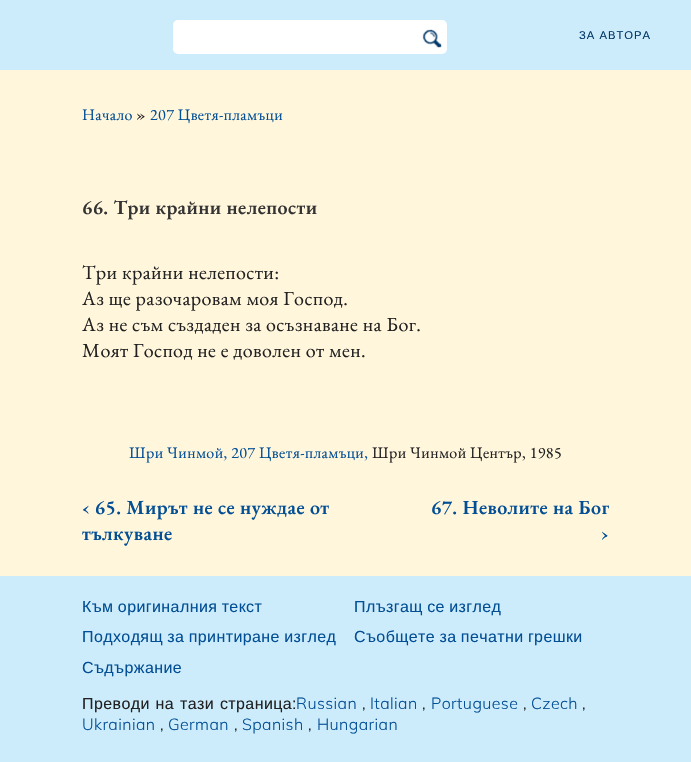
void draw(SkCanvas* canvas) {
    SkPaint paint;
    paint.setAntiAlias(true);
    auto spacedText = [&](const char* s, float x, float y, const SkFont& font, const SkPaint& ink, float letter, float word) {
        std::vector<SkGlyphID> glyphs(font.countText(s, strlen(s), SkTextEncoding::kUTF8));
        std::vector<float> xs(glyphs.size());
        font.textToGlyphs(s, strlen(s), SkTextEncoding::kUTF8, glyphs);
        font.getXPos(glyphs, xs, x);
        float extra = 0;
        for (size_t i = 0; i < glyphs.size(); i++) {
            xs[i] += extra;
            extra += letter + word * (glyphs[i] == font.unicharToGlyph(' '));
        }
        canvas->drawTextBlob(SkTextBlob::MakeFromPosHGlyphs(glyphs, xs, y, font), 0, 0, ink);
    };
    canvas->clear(0xFFFFF6DC);
    paint.setColor(0xFFCCECFC);
    canvas->drawRect(SkRect::MakeXYWH(0, 0, 691, 70), paint);
    paint.setColor(0xFFFFFFFF);
    canvas->drawRoundRect(SkRect::MakeXYWH(173, 20, 274, 34), 5, 5, paint);
    canvas->drawImageRect(SkImages::DeferredFromEncodedData(SkData::MakeFromFileName("img1.png")), SkRect::MakeXYWH(422, 29, 20, 19), SkSamplingOptions());
    SkFont font1(fontMgr->matchFamilyStyle("Liberation Sans", SkFontStyle::Normal()), 11.25f);
    font1.setSubpixel(true);
    paint.setColor(0xFF023868);
    spacedText("ЗА АВТОРА", 579, 39, font1, paint, 1, 0);
    SkFont font2(fontMgr->matchFamilyStyle("EB Garamond", SkFontStyle::Normal()), 16);
    font2.setSubpixel(true);
    paint.setColor(0xFF034F95);
    spacedText("Начало", 82, 120, font2, paint, 0.4f, 0);
    paint.setColor(0xFF222222);
    spacedText("»", 136, 120, font2, paint, 0.4f, 0);
    paint.setColor(0xFF034F95);
    spacedText("207 Цветя-пламъци", 150, 120, font2, paint, 0.4f, 0);
    SkFont font3(fontMgr->matchFamilyStyle("EB Garamond", SkFontStyle(600, SkFontStyle::kNormal_Width, SkFontStyle::kUpright_Slant)), 20);
    font3.setSubpixel(true);
    paint.setColor(0xFF333333);
    spacedText("66. Три крайни нелепости", 82, 214, font3, paint, 0.4f, 0);
    SkFont font4(fontMgr->matchFamilyStyle("EB Garamond", SkFontStyle::Normal()), 20);
    font4.setSubpixel(true);
    paint.setColor(0xFF222222);
    spacedText("Три крайни нелепости:", 82, 279, font4, paint, 0.4f, 0);
    spacedText("Аз ще разочаровам моя Господ.", 82, 305, font4, paint, 0.4f, 0);
    spacedText("Аз не съм създаден за осъзнаване на Бог.", 82, 331, font4, paint, 0.4f, 0);
    spacedText("Моят Господ не е доволен от мен.", 82, 357, font4, paint, 0.4f, 0);
    paint.setColor(0xFF034F95);
    spacedText("Шри Чинмой, 207 Цветя-пламъци,", 129, 458, font2, paint, 0.4f, 0);
    paint.setColor(0xFF222222);
    spacedText("Шри Чинмой Център, 1985", 372, 458, font2, paint, 0.4f, 0);
    paint.setColor(0xFF034F95);
    spacedText("‹ 65. Мирът не се нуждае от", 82, 514, font3, paint, 0.4f, 0);
    spacedText("тълкуване", 82, 540, font3, paint, 0.4f, 0);
    spacedText("67. Неволите на Бог", 431, 514, font3, paint, 0.4f, 0);
    spacedText("›", 601, 540, font3, paint, 0.4f, 0);
    paint.setColor(0xFFCCECFC);
    canvas->drawRect(SkRect::MakeXYWH(0, 576, 691, 186), paint);
    SkFont font5(fontMgr->matchFamilyStyle("Liberation Sans", SkFontStyle::Normal()), 16);
    font5.setSubpixel(true);
    paint.setColor(0xFF034F95);
    spacedText("Към оригиналния текст", 82, 612, font5, paint, 0.4f, -0.5f);
    spacedText("Плъзгащ се изглед", 354, 612, font5, paint, 0.4f, -0.5f);
    spacedText("Подходящ за принтиране изглед", 82, 642, font5, paint, 0.4f, -0.5f);
    spacedText("Съобщете за печатни грешки", 354, 642, font5, paint, 0.4f, -0.5f);
    spacedText("Съдържание", 82, 673, font5, paint, 0.4f, 0);
    paint.setColor(0xFF222222);
    spacedText("Преводи на тази страница:", 82, 709, font5, paint, 0.4f, 1);
    SkFont font6(fontMgr->matchFamilyStyle("Muli", SkFontStyle(300, SkFontStyle::kNormal_Width, SkFontStyle::kUpright_Slant)), 16);
    font6.setSubpixel(true);
    paint.setColor(0xFF034F95);
    spacedText("Russian", 296, 709, font6, paint, 0.4f, 0);
    paint.setColor(0xFF222222);
    spacedText(",", 362, 709, font6, paint, 0.4f, 0);
    paint.setColor(0xFF034F95);
    spacedText("Italian", 370, 709, font6, paint, 0.4f, 0);
    paint.setColor(0xFF222222);
    spacedText(",", 422, 709, font6, paint, 0.4f, 0);
    paint.setColor(0xFF034F95);
    spacedText("Portuguese", 431, 709, font6, paint, 0.4f, 0);
    paint.setColor(0xFF222222);
    spacedText(",", 523, 709, font6, paint, 0.4f, 0);
    paint.setColor(0xFF034F95);
    spacedText("Czech", 531, 709, font6, paint, 0.4f, 0);
    paint.setColor(0xFF222222);
    spacedText(",", 582, 709, font6, paint, 0.4f, 0);
    paint.setColor(0xFF034F95);
    spacedText("Ukrainian", 82, 730, font6, paint, 0.4f, 0);
    paint.setColor(0xFF222222);
    spacedText(",", 160, 730, font6, paint, 0.4f, 0);
    paint.setColor(0xFF034F95);
    spacedText("German", 168, 730, font6, paint, 0.4f, 0);
    paint.setColor(0xFF222222);
    spacedText(",", 234, 730, font6, paint, 0.4f, 0);
    paint.setColor(0xFF034F95);
    spacedText("Spanish", 242, 730, font6, paint, 0.4f, 0);
    paint.setColor(0xFF222222);
    spacedText(",", 308, 730, font6, paint, 0.4f, 0);
    paint.setColor(0xFF034F95);
    spacedText("Hungarian", 317, 730, font6, paint, 0.4f, 0);
}
